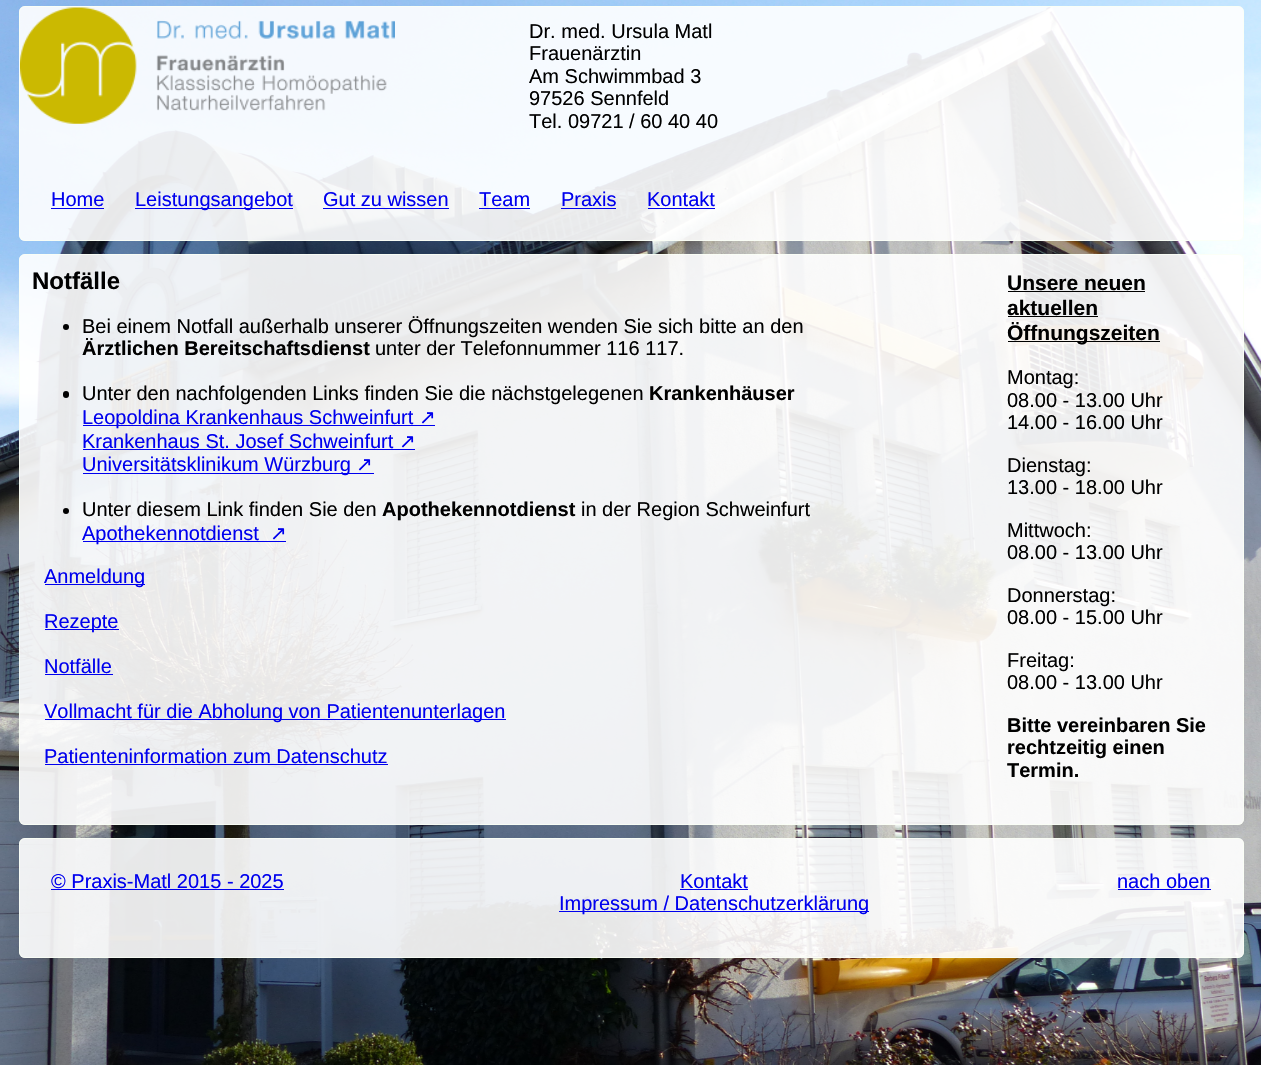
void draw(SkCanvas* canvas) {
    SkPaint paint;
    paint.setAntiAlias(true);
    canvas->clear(0xFFFFFFFF);
    canvas->drawImageRect(SkImages::DeferredFromEncodedData(SkData::MakeFromFileName("img1.png")), SkRect::MakeXYWH(0, 0, 1261, 1065), SkSamplingOptions());
    paint.setColor(0xE6FFFFFF);
    canvas->drawRoundRect(SkRect::MakeXYWH(19, 6, 1225, 235), 6, 6, paint);
    paint.setStyle(SkPaint::kStroke_Style);
    paint.setStrokeWidth(1);
    paint.setColor(0xCCFAFFF5);
    canvas->drawRoundRect(SkRect::MakeXYWH(19.5f, 6.5f, 1224, 234), 5.5f, 5.5f, paint);
    canvas->drawImageRect(SkImages::DeferredFromEncodedData(SkData::MakeFromFileName("img2.png")), SkRect::MakeXYWH(20, 7, 375, 117), SkSamplingOptions());
    SkFont font1(fontMgr->matchFamilyStyle("Liberation Sans", SkFontStyle::Normal()), 20);
    font1.setSubpixel(true);
    paint.setStyle(SkPaint::kFill_Style);
    paint.setColor(0xFF000000);
    canvas->drawString("Dr. med. Ursula Matl", 529, 38, font1, paint);
    canvas->drawString("Frauenärztin", 529, 60, font1, paint);
    canvas->drawString("Am Schwimmbad 3", 529, 83, font1, paint);
    canvas->drawString("97526 Sennfeld", 529, 105, font1, paint);
    canvas->drawString("Tel. 09721 / 60 40 40", 529, 128, font1, paint);
    paint.setColor(0xFF0000EE);
    canvas->drawString("Home", 51, 206, font1, paint);
    canvas->drawRect(SkRect::MakeXYWH(51, 208, 53, 1), paint);
    canvas->drawRect(SkRect::MakeXYWH(135, 208, 158, 1), paint);
    canvas->drawString("Leistungsangebot", 135, 206, font1, paint);
    canvas->drawString("Gut zu wissen", 323, 206, font1, paint);
    canvas->drawRect(SkRect::MakeXYWH(323, 208, 126, 1), paint);
    canvas->drawString("Team", 479, 206, font1, paint);
    canvas->drawRect(SkRect::MakeXYWH(479, 208, 51, 1), paint);
    canvas->drawString("Praxis", 561, 206, font1, paint);
    canvas->drawRect(SkRect::MakeXYWH(561, 208, 55, 1), paint);
    canvas->drawString("Kontakt", 647, 206, font1, paint);
    canvas->drawRect(SkRect::MakeXYWH(648, 208, 67, 1), paint);
    paint.setColor(0xE6FFFFFF);
    canvas->drawRoundRect(SkRect::MakeXYWH(19, 254, 1225, 571), 6, 6, paint);
    paint.setStyle(SkPaint::kStroke_Style);
    paint.setColor(0xCCFAFFF5);
    canvas->drawRoundRect(SkRect::MakeXYWH(19.5f, 254.5f, 1224, 570), 5.5f, 5.5f, paint);
    SkFont font2(fontMgr->matchFamilyStyle("Liberation Sans", SkFontStyle::Bold()), 24);
    font2.setSubpixel(true);
    paint.setStyle(SkPaint::kFill_Style);
    paint.setColor(0xFF000000);
    canvas->drawString("Notfälle", 32, 289, font2, paint);
    canvas->drawCircle(66, 327, 3, paint);
    canvas->drawString("Bei einem Notfall außerhalb unserer Öffnungszeiten wenden Sie sich bitte an den", 82, 333, font1, paint);
    SkFont font3(fontMgr->matchFamilyStyle("Liberation Sans", SkFontStyle::Bold()), 20);
    font3.setSubpixel(true);
    canvas->drawString("Ärztlichen Bereitschaftsdienst", 82, 355, font3, paint);
    canvas->drawString("unter der Telefonnummer 116 117.", 375, 355, font1, paint);
    canvas->drawRoundRect(SkRect::MakeXYWH(63, 391, 6, 7), 3, 3, paint);
    canvas->drawString("Unter den nachfolgenden Links finden Sie die nächstgelegenen", 82, 400, font1, paint);
    canvas->drawString("Krankenhäuser", 649, 400, font3, paint);
    paint.setColor(0xFF0000EE);
    canvas->drawRect(SkRect::MakeXYWH(83, 425, 352, 1), paint);
    canvas->drawString("Leopoldina Krankenhaus Schweinfurt", 82, 424, font1, paint);
    SkFont font4(fontMgr->matchFamilyStyle("DejaVu Sans", SkFontStyle::Normal()), 20);
    font4.setSubpixel(true);
    canvas->drawString("↗", 419, 424, font4, paint);
    canvas->drawString("Krankenhaus St. Josef Schweinfurt", 82, 448, font1, paint);
    canvas->drawString("↗", 399, 448, font4, paint);
    canvas->drawRect(SkRect::MakeXYWH(83, 449, 332, 1), paint);
    canvas->drawRect(SkRect::MakeXYWH(83, 473, 291, 1), paint);
    canvas->drawString("Universitätsklinikum Würzburg", 82, 471, font1, paint);
    canvas->drawString("↗", 356, 471, font4, paint);
    paint.setColor(0xFF000000);
    canvas->drawCircle(66, 511, 3, paint);
    canvas->drawString("Unter diesem Link finden Sie den", 82, 516, font1, paint);
    canvas->drawString("Apothekennotdienst", 382, 516, font3, paint);
    canvas->drawString("in der Region Schweinfurt", 581, 516, font1, paint);
    paint.setColor(0xFF0000EE);
    canvas->drawRect(SkRect::MakeXYWH(83, 541, 203, 1), paint);
    canvas->drawString("Apothekennotdienst", 82, 540, font1, paint);
    canvas->drawString("↗", 270, 540, font4, paint);
    canvas->drawRect(SkRect::MakeXYWH(45, 584, 100, 1), paint);
    canvas->drawString("Anmeldung", 44, 583, font1, paint);
    canvas->drawRect(SkRect::MakeXYWH(45, 629, 74, 1), paint);
    canvas->drawString("Rezepte", 44, 628, font1, paint);
    canvas->drawString("Notfälle", 44, 673, font1, paint);
    canvas->drawRect(SkRect::MakeXYWH(45, 674, 68, 1), paint);
    canvas->drawRect(SkRect::MakeXYWH(45, 719, 461, 1), paint);
    canvas->drawString("Vollmacht für die Abholung von Patientenunterlagen", 44, 718, font1, paint);
    canvas->drawString("Patienteninformation zum Datenschutz", 44, 763, font1, paint);
    canvas->drawRect(SkRect::MakeXYWH(45, 764, 343, 1), paint);
    SkFont font5(fontMgr->matchFamilyStyle("Liberation Sans", SkFontStyle::Bold()), 21);
    font5.setSubpixel(true);
    paint.setColor(0xFF000000);
    canvas->drawString("Unsere neuen", 1007, 290, font5, paint);
    canvas->drawRect(SkRect::MakeXYWH(1008, 291, 137, 1), paint);
    canvas->drawString("aktuellen", 1007, 315, font5, paint);
    canvas->drawRect(SkRect::MakeXYWH(1008, 316, 90, 1), paint);
    canvas->drawRect(SkRect::MakeXYWH(1008, 341, 152, 1), paint);
    canvas->drawString("Öffnungszeiten", 1007, 340, font5, paint);
    canvas->drawString("Montag:", 1007, 384, font1, paint);
    canvas->drawString("08.00 - 13.00 Uhr", 1007, 407, font1, paint);
    canvas->drawString("14.00 - 16.00 Uhr", 1007, 429, font1, paint);
    canvas->drawString("Dienstag:", 1007, 472, font1, paint);
    canvas->drawString("13.00 - 18.00 Uhr", 1007, 494, font1, paint);
    canvas->drawString("Mittwoch:", 1007, 537, font1, paint);
    canvas->drawString("08.00 - 13.00 Uhr", 1007, 559, font1, paint);
    canvas->drawString("Donnerstag:", 1007, 602, font1, paint);
    canvas->drawString("08.00 - 15.00 Uhr", 1007, 624, font1, paint);
    canvas->drawString("Freitag:", 1007, 667, font1, paint);
    canvas->drawString("08.00 - 13.00 Uhr", 1007, 689, font1, paint);
    canvas->drawString("Bitte vereinbaren Sie", 1007, 732, font3, paint);
    canvas->drawString("rechtzeitig einen", 1007, 754, font3, paint);
    canvas->drawString("Termin.", 1007, 777, font3, paint);
    paint.setColor(0xE6FFFFFF);
    canvas->drawRoundRect(SkRect::MakeXYWH(19, 838, 1225, 120), 6, 6, paint);
    paint.setStyle(SkPaint::kStroke_Style);
    paint.setColor(0xCCFAFFF5);
    canvas->drawRoundRect(SkRect::MakeXYWH(19.5f, 838.5f, 1224, 119), 5.5f, 5.5f, paint);
    paint.setStyle(SkPaint::kFill_Style);
    paint.setColor(0xFF0000EE);
    canvas->drawString("© Praxis-Matl 2015 - 2025", 51, 888, font1, paint);
    canvas->drawRect(SkRect::MakeXYWH(51, 889, 233, 1), paint);
    canvas->drawString("Kontakt", 680, 888, font1, paint);
    canvas->drawRect(SkRect::MakeXYWH(680, 889, 68, 1), paint);
    canvas->drawRect(SkRect::MakeXYWH(559, 911, 310, 1), paint);
    canvas->drawString("Impressum / Datenschutzerklärung", 559, 910, font1, paint);
    canvas->drawString("nach oben", 1117, 888, font1, paint);
    canvas->drawRect(SkRect::MakeXYWH(1118, 889, 93, 1), paint);
}
